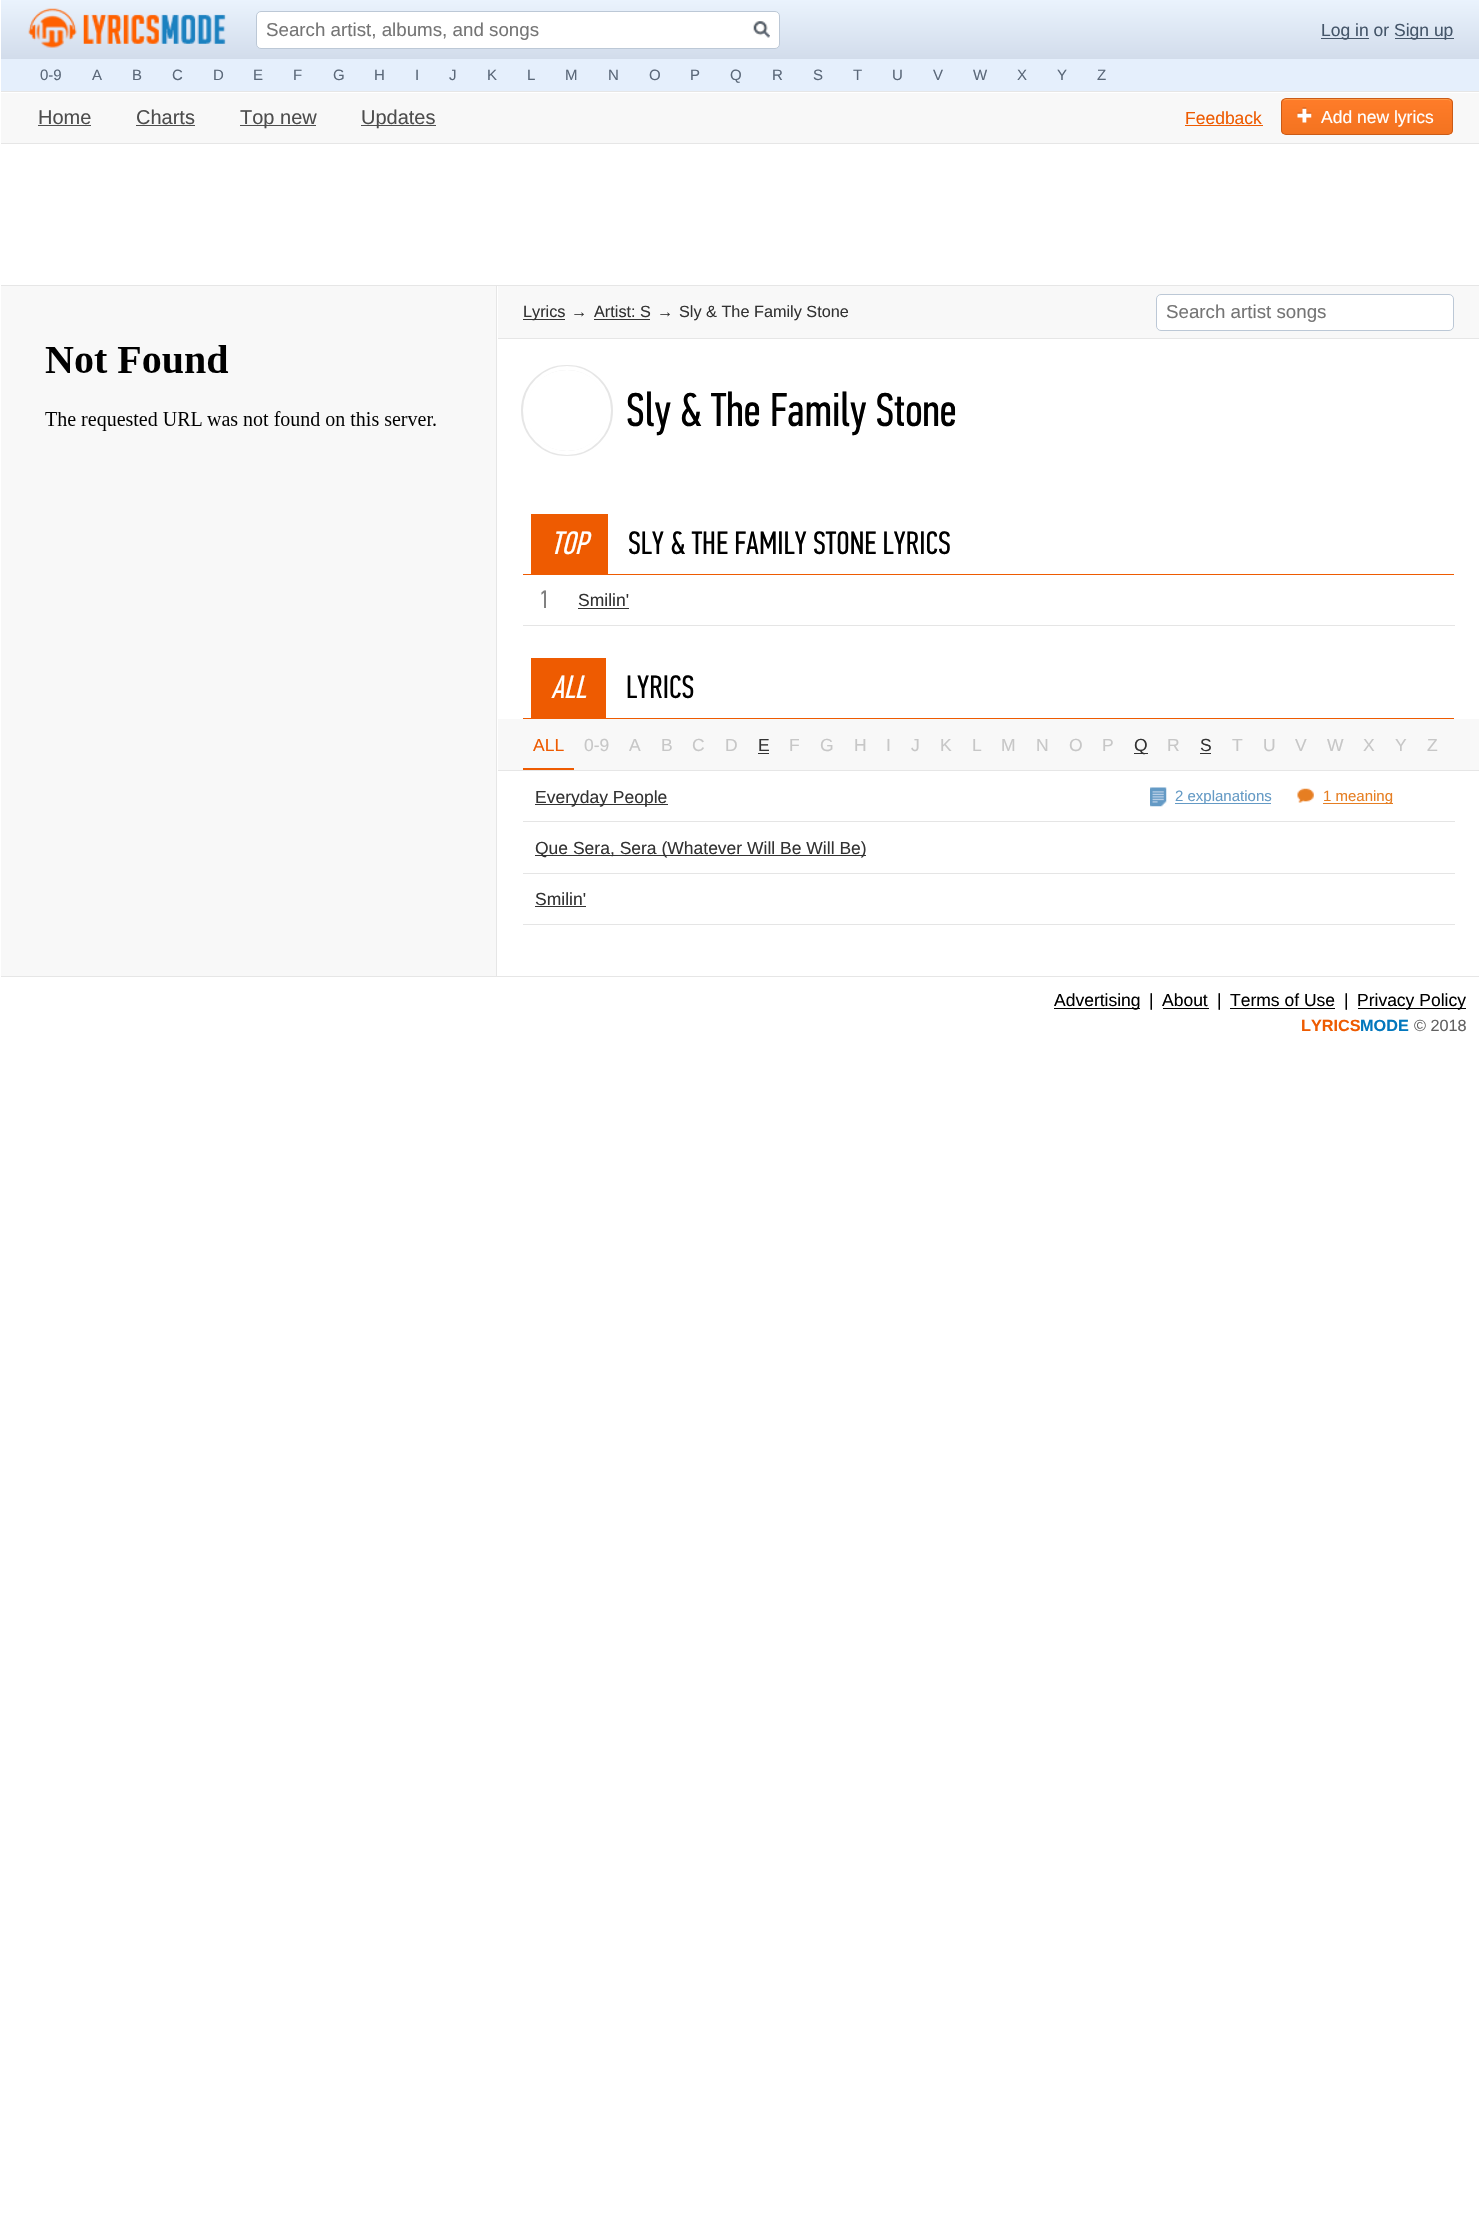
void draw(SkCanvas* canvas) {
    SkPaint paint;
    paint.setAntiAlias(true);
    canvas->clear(0xFFFFFFFF);
    {
        const SkColor colors[] = {0xFFEAF3FD, 0xFFD2DCEB};
        const float stops[] = {0, 1};
        const SkPoint ends[] = {{740, 0}, {740, 59}};
        paint.setShader(SkGradientShader::MakeLinear(ends, colors, stops, 2, SkTileMode::kClamp));
        paint.setAlpha(255);
    }
    canvas->drawRect(SkRect::MakeXYWH(1, 0, 1478, 59), paint);
    canvas->drawImageRect(SkImages::DeferredFromEncodedData(SkData::MakeFromFileName("img1.png")), SkRect::MakeXYWH(28, 8, 198, 40), SkSamplingOptions());
    paint.setShader(nullptr);
    paint.setColor(0xFFFFFFFF);
    canvas->drawRoundRect(SkRect::MakeXYWH(256.5f, 11.5f, 523, 37), 4.5f, 4.5f, paint);
    paint.setStyle(SkPaint::kStroke_Style);
    paint.setStrokeWidth(1);
    paint.setColor(0xFFBCC8D6);
    canvas->drawRoundRect(SkRect::MakeXYWH(256.5f, 11.5f, 523, 37), 4.5f, 4.5f, paint);
    SkFont font1(fontMgr->matchFamilyStyle("Liberation Sans", SkFontStyle::Normal()), 18.75f);
    font1.setSubpixel(true);
    paint.setStyle(SkPaint::kFill_Style);
    paint.setColor(0xFF757575);
    canvas->drawString("Search artist, albums, and songs", 266, 36, font1, paint);
    canvas->drawImageRect(SkImages::DeferredFromEncodedData(SkData::MakeFromFileName("img2.png")), SkRect::MakeXYWH(753, 21, 17, 17), SkSamplingOptions());
    paint.setColor(0xFF45566A);
    canvas->drawRect(SkRect::MakeXYWH(1321, 38, 48, 1), paint);
    SkFont font2(fontMgr->matchFamilyStyle("Liberation Sans", SkFontStyle::Normal()), 17.5f);
    font2.setSubpixel(true);
    canvas->drawString("Log in or", 1321, 36, font2, paint);
    canvas->drawRect(SkRect::MakeXYWH(1395, 38, 59, 1), paint);
    canvas->drawString("Sign up", 1394, 36, font2, paint);
    paint.setColor(0xFFE5EFFC);
    canvas->drawRect(SkRect::MakeXYWH(1, 59, 1478, 32), paint);
    SkFont font3(fontMgr->matchFamilyStyle("Liberation Sans", SkFontStyle::Normal()), 15);
    font3.setSubpixel(true);
    paint.setColor(0xFF5B6879);
    canvas->drawString("0-9", 40, 80, font3, paint);
    canvas->drawString("A", 92, 80, font3, paint);
    canvas->drawString("B", 132, 80, font3, paint);
    canvas->drawString("C", 172, 80, font3, paint);
    canvas->drawString("D", 213, 80, font3, paint);
    canvas->drawString("E", 253, 80, font3, paint);
    canvas->drawString("F", 293, 80, font3, paint);
    canvas->drawString("G", 333, 80, font3, paint);
    canvas->drawString("H", 374, 80, font3, paint);
    canvas->drawString("I", 415, 80, font3, paint);
    canvas->drawString("J", 449, 80, font3, paint);
    canvas->drawString("K", 487, 80, font3, paint);
    canvas->drawString("L", 527, 80, font3, paint);
    canvas->drawString("M", 565, 80, font3, paint);
    canvas->drawString("N", 608, 80, font3, paint);
    canvas->drawString("O", 649, 80, font3, paint);
    canvas->drawString("P", 690, 80, font3, paint);
    canvas->drawString("Q", 730, 80, font3, paint);
    canvas->drawString("R", 772, 80, font3, paint);
    canvas->drawString("S", 813, 80, font3, paint);
    canvas->drawString("T", 853, 80, font3, paint);
    canvas->drawString("U", 892, 80, font3, paint);
    canvas->drawString("V", 933, 80, font3, paint);
    canvas->drawString("W", 973, 80, font3, paint);
    canvas->drawString("X", 1017, 80, font3, paint);
    canvas->drawString("Y", 1057, 80, font3, paint);
    canvas->drawString("Z", 1097, 80, font3, paint);
    paint.setColor(0xFFF8F8F8);
    canvas->drawRect(SkRect::MakeXYWH(1, 93, 1478, 50), paint);
    paint.setColor(0xFFE6E6E6);
    canvas->drawRect(SkRect::MakeXYWH(1, 91, 1478, 1), paint);
    canvas->drawRect(SkRect::MakeXYWH(1, 143, 1478, 1), paint);
    SkFont font4(fontMgr->matchFamilyStyle("Liberation Sans", SkFontStyle::Normal()), 20);
    font4.setSubpixel(true);
    paint.setColor(0xFF4D4D4D);
    canvas->drawString("Home", 38, 124, font4, paint);
    canvas->drawRect(SkRect::MakeXYWH(38, 125, 53, 1), paint);
    canvas->drawString("Charts", 136, 124, font4, paint);
    canvas->drawRect(SkRect::MakeXYWH(136, 125, 59, 1), paint);
    canvas->drawRect(SkRect::MakeXYWH(240, 125, 76, 1), paint);
    canvas->drawString("Top new", 240, 124, font4, paint);
    canvas->drawRect(SkRect::MakeXYWH(361, 125, 75, 1), paint);
    canvas->drawString("Updates", 361, 124, font4, paint);
    paint.setColor(0xFFEE5B01);
    canvas->drawString("Feedback", 1185, 124, font2, paint);
    canvas->drawRect(SkRect::MakeXYWH(1185, 125, 78, 1), paint);
    canvas->save();
    canvas->clipPath(SkPathBuilder().moveTo(1286, 98).lineTo(1448, 98).cubicTo(1451, 98, 1453, 100, 1453, 103).lineTo(1453, 130).cubicTo(1453, 133, 1451, 135, 1448, 135).lineTo(1286, 135).cubicTo(1283, 135, 1281, 133, 1281, 130).lineTo(1281, 103).cubicTo(1281, 100, 1283, 98, 1286, 98).close().detach(), true);
    {
        const SkColor colors[] = {0xFFFF7C29, 0xFFF37320};
        const float stops[] = {0, 1};
        const SkPoint ends[] = {{1367, 99}, {1367, 134}};
        paint.setShader(SkGradientShader::MakeLinear(ends, colors, stops, 2, SkTileMode::kClamp));
        paint.setAlpha(255);
    }
    canvas->drawRect(SkRect::MakeXYWH(1281, 99, 172, 35), paint);
    canvas->restore();
    paint.setShader(nullptr);
    paint.setColor(0xFFFF9A45);
    canvas->drawPath(SkPathBuilder().moveTo(1286, 100).lineTo(1448, 100).cubicTo(1450, 100, 1451, 102, 1451, 104).cubicTo(1451, 103, 1451, 101, 1450, 100).lineTo(1447, 99).lineTo(1285, 99).lineTo(1284, 101).close().detach(), paint);
    paint.setStyle(SkPaint::kStroke_Style);
    paint.setColor(0xFFCA5B17);
    canvas->drawRoundRect(SkRect::MakeXYWH(1281.5f, 98.5f, 171, 36), 4.5f, 4.5f, paint);
    canvas->drawImageRect(SkImages::DeferredFromEncodedData(SkData::MakeFromFileName("img3.png")), SkRect::MakeXYWH(1297, 107, 15, 16), SkSamplingOptions());
    paint.setStyle(SkPaint::kFill_Style);
    paint.setColor(0xFFFFFFFF);
    canvas->drawString("Add new lyrics", 1321, 123, font2, paint);
    paint.setColor(0xFFE6E6E6);
    canvas->drawRect(SkRect::MakeXYWH(1, 285, 1478, 1), paint);
    paint.setColor(0xFFF8F8F8);
    canvas->drawRect(SkRect::MakeXYWH(1, 286, 495, 690), paint);
    canvas->drawImageRect(SkImages::DeferredFromEncodedData(SkData::MakeFromFileName("img4.png")), SkRect::MakeXYWH(45, 345, 391, 86), SkSamplingOptions());
    paint.setColor(0xFFE6E6E6);
    canvas->drawRect(SkRect::MakeXYWH(496, 286, 1, 690), paint);
    paint.setColor(0xFFF8F8F8);
    canvas->drawRect(SkRect::MakeXYWH(498, 286, 981, 52), paint);
    paint.setColor(0xFFE6E6E6);
    canvas->drawRect(SkRect::MakeXYWH(498, 338, 981, 1), paint);
    paint.setColor(0xFF333333);
    canvas->drawRect(SkRect::MakeXYWH(523, 319, 42, 1), paint);
    SkFont font5(fontMgr->matchFamilyStyle("Liberation Sans", SkFontStyle::Normal()), 16.25f);
    font5.setSubpixel(true);
    canvas->drawString("Lyrics", 523, 317, font5, paint);
    canvas->drawString("→", 571, 317, font5, paint);
    canvas->drawString("Artist: S", 594, 317, font5, paint);
    canvas->drawRect(SkRect::MakeXYWH(594, 319, 56, 1), paint);
    canvas->drawString("→", 657, 317, font5, paint);
    canvas->drawString("Sly & The Family Stone", 679, 317, font5, paint);
    paint.setColor(0xFFFFFFFF);
    canvas->drawRoundRect(SkRect::MakeXYWH(1156.5f, 294.5f, 297, 36), 4.5f, 4.5f, paint);
    paint.setStyle(SkPaint::kStroke_Style);
    paint.setColor(0xFFBCC8D6);
    canvas->drawRoundRect(SkRect::MakeXYWH(1156.5f, 294.5f, 297, 36), 4.5f, 4.5f, paint);
    paint.setStyle(SkPaint::kFill_Style);
    paint.setColor(0xFF757575);
    canvas->drawString("Search artist songs", 1166, 318, font1, paint);
    paint.setStyle(SkPaint::kStroke_Style);
    paint.setStrokeWidth(5);
    paint.setColor(0xFFE6E6E6);
    canvas->drawRoundRect(SkRect::MakeXYWH(523.5f, 367.5f, 87, 86), 43, 43, paint);
    paint.setStrokeWidth(4);
    paint.setColor(0xFFFFFFFF);
    canvas->drawRoundRect(SkRect::MakeXYWH(525, 368, 84, 85), 42, 42, paint);
    SkFont font6(fontMgr->matchFamilyStyle("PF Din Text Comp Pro", SkFontStyle::Normal()), 47.5f);
    font6.setSubpixel(true);
    paint.setStyle(SkPaint::kFill_Style);
    paint.setColor(0xFF000000);
    canvas->drawString("Sly & The Family Stone", 626, 426, font6, paint);
    paint.setColor(0xFFEE5B01);
    canvas->drawRect(SkRect::MakeXYWH(523, 574, 931, 1), paint);
    canvas->drawRect(SkRect::MakeXYWH(531, 514, 77, 60), paint);
    SkFont font7(fontMgr->matchFamilyStyle("PF Din Text Comp Pro", SkFontStyle::Italic()), 32.5f);
    font7.setSubpixel(true);
    paint.setColor(0xFFFFFFFF);
    canvas->drawString("TOP", 551, 554, font7, paint);
    SkFont font8(fontMgr->matchFamilyStyle("PF Din Text Comp Pro", SkFontStyle::Normal()), 32.5f);
    font8.setSubpixel(true);
    paint.setColor(0xFF000000);
    canvas->drawString("SLY & THE FAMILY STONE LYRICS", 628, 554, font8, paint);
    paint.setColor(0xFFE5E5E5);
    canvas->drawRect(SkRect::MakeXYWH(523, 625, 932, 1), paint);
    SkFont font9(fontMgr->matchFamilyStyle("PF Din Text Comp Pro", SkFontStyle::Normal()), 25);
    font9.setSubpixel(true);
    paint.setColor(0xFF808080);
    canvas->drawString("1", 539, 608, font9, paint);
    paint.setColor(0xFF333333);
    canvas->drawString("Smilin'", 578, 606, font2, paint);
    canvas->drawRect(SkRect::MakeXYWH(578, 608, 51, 1), paint);
    paint.setColor(0xFFEE5B01);
    canvas->drawRect(SkRect::MakeXYWH(523, 718, 931, 1), paint);
    canvas->drawRect(SkRect::MakeXYWH(531, 658, 75, 60), paint);
    paint.setColor(0xFFFFFFFF);
    canvas->drawString("ALL", 551, 698, font7, paint);
    paint.setColor(0xFF000000);
    canvas->drawString("LYRICS", 626, 698, font8, paint);
    paint.setColor(0xFFF8F8F8);
    canvas->drawRect(SkRect::MakeXYWH(498, 719, 981, 51), paint);
    paint.setColor(0xFFE6E6E6);
    canvas->drawRect(SkRect::MakeXYWH(498, 770, 981, 1), paint);
    paint.setColor(0xFFEE5B01);
    canvas->drawString("ALL", 533, 751, font2, paint);
    canvas->drawRect(SkRect::MakeXYWH(523, 768, 51, 2), paint);
    paint.setColor(0xFFC7C7C7);
    canvas->drawString("0-9", 584, 751, font2, paint);
    canvas->drawString("A", 629, 751, font2, paint);
    canvas->drawString("B", 661, 751, font2, paint);
    canvas->drawString("C", 692, 751, font2, paint);
    canvas->drawString("D", 725, 751, font2, paint);
    paint.setColor(0xFF333333);
    canvas->drawString("E", 758, 751, font2, paint);
    canvas->drawRect(SkRect::MakeXYWH(758, 753, 11, 1), paint);
    paint.setColor(0xFFC7C7C7);
    canvas->drawString("F", 789, 751, font2, paint);
    canvas->drawString("G", 820, 751, font2, paint);
    canvas->drawString("H", 854, 751, font2, paint);
    canvas->drawString("I", 886, 751, font2, paint);
    canvas->drawString("J", 911, 751, font2, paint);
    canvas->drawString("K", 940, 751, font2, paint);
    canvas->drawString("L", 972, 751, font2, paint);
    canvas->drawString("M", 1001, 751, font2, paint);
    canvas->drawString("N", 1036, 751, font2, paint);
    canvas->drawString("O", 1069, 751, font2, paint);
    canvas->drawString("P", 1102, 751, font2, paint);
    paint.setColor(0xFF333333);
    canvas->drawRect(SkRect::MakeXYWH(1134, 753, 14, 1), paint);
    canvas->drawString("Q", 1134, 751, font2, paint);
    paint.setColor(0xFFC7C7C7);
    canvas->drawString("R", 1167, 751, font2, paint);
    paint.setColor(0xFF333333);
    canvas->drawString("S", 1200, 751, font2, paint);
    canvas->drawRect(SkRect::MakeXYWH(1200, 753, 11, 1), paint);
    paint.setColor(0xFFC7C7C7);
    canvas->drawString("T", 1232, 751, font2, paint);
    canvas->drawString("U", 1263, 751, font2, paint);
    canvas->drawString("V", 1295, 751, font2, paint);
    canvas->drawString("W", 1327, 751, font2, paint);
    canvas->drawString("X", 1363, 751, font2, paint);
    canvas->drawString("Y", 1395, 751, font2, paint);
    canvas->drawString("Z", 1427, 751, font2, paint);
    paint.setColor(0xFFE5E5E5);
    canvas->drawRect(SkRect::MakeXYWH(523, 821, 932, 1), paint);
    paint.setColor(0xFF333333);
    canvas->drawRect(SkRect::MakeXYWH(535, 804, 133, 1), paint);
    canvas->drawString("Everyday People", 535, 803, font2, paint);
    canvas->drawImageRect(SkImages::DeferredFromEncodedData(SkData::MakeFromFileName("img5.png")), SkRect::MakeXYWH(1150, 787, 17, 20), SkSamplingOptions());
    paint.setColor(0xFF649AC5);
    canvas->drawRect(SkRect::MakeXYWH(1175, 803, 96, 1), paint);
    canvas->drawString("2 explanations", 1175, 801, font3, paint);
    canvas->drawImageRect(SkImages::DeferredFromEncodedData(SkData::MakeFromFileName("img6.png")), SkRect::MakeXYWH(1297, 788, 17, 15), SkSamplingOptions());
    paint.setColor(0xFFE67E22);
    canvas->drawRect(SkRect::MakeXYWH(1323, 803, 70, 1), paint);
    canvas->drawString("1 meaning", 1323, 801, font3, paint);
    paint.setColor(0xFFE5E5E5);
    canvas->drawRect(SkRect::MakeXYWH(523, 873, 932, 1), paint);
    paint.setColor(0xFF333333);
    canvas->drawRect(SkRect::MakeXYWH(535, 855, 331, 1), paint);
    canvas->drawString("Que Sera, Sera (Whatever Will Be Will Be)", 535, 854, font2, paint);
    paint.setColor(0xFFE5E5E5);
    canvas->drawRect(SkRect::MakeXYWH(523, 924, 932, 1), paint);
    paint.setColor(0xFF333333);
    canvas->drawString("Smilin'", 535, 905, font2, paint);
    canvas->drawRect(SkRect::MakeXYWH(535, 906, 51, 1), paint);
    paint.setColor(0xFFE6E6E6);
    canvas->drawRect(SkRect::MakeXYWH(1, 976, 1478, 1), paint);
    paint.setColor(0xFF000000);
    canvas->drawRect(SkRect::MakeXYWH(1054, 1008, 86, 1), paint);
    canvas->drawString("Advertising", 1054, 1006, font2, paint);
    canvas->drawString("|", 1149, 1006, font2, paint);
    canvas->drawString("About", 1162, 1006, font2, paint);
    canvas->drawRect(SkRect::MakeXYWH(1163, 1008, 46, 1), paint);
    canvas->drawString("|", 1217, 1006, font2, paint);
    canvas->drawString("Terms of Use", 1230, 1006, font2, paint);
    canvas->drawRect(SkRect::MakeXYWH(1230, 1008, 105, 1), paint);
    canvas->drawString("|", 1344, 1006, font2, paint);
    canvas->drawRect(SkRect::MakeXYWH(1358, 1008, 108, 1), paint);
    canvas->drawString("Privacy Policy", 1357, 1006, font2, paint);
    SkFont font10(fontMgr->matchFamilyStyle("Liberation Sans", SkFontStyle::Bold()), 16.25f);
    font10.setSubpixel(true);
    paint.setColor(0xFFEE5B01);
    canvas->drawString("LYRICS", 1301, 1031, font10, paint);
    paint.setColor(0xFF0277BD);
    canvas->drawString("MODE", 1360, 1031, font10, paint);
    paint.setColor(0xFF616161);
    canvas->drawString("© 2018", 1414, 1031, font5, paint);
}
